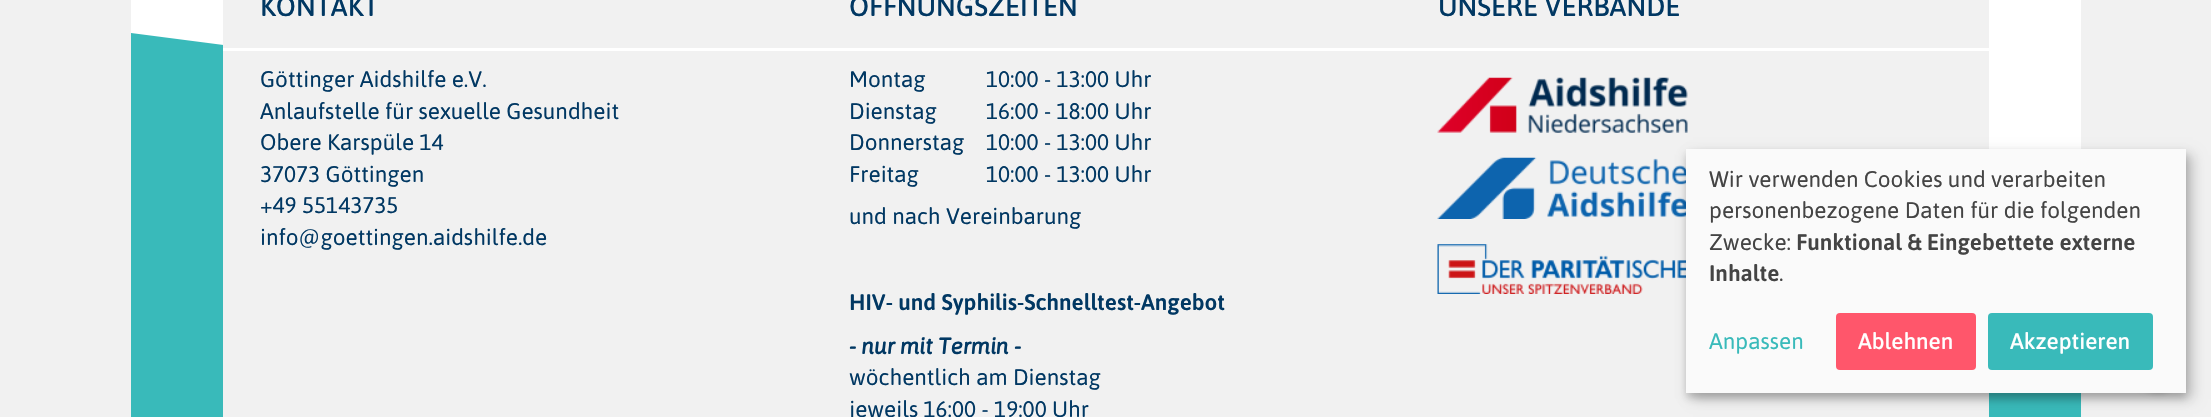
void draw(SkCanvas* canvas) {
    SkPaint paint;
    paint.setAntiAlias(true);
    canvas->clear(0xFFF1F1F1);
    paint.setColor(0xFFFFFFFF);
    canvas->drawRect(SkRect::MakeXYWH(131, 0, 1950, 149), paint);
    paint.setColor(0xFF39BABA);
    canvas->drawPath(SkPathBuilder().moveTo(131, 33).lineTo(131, 286).lineTo(2081, 286).close().detach(), paint);
    canvas->drawRect(SkRect::MakeXYWH(131, 284, 1950, 133), paint);
    paint.setColor(0xFFF1F1F1);
    canvas->drawRect(SkRect::MakeXYWH(223, 0, 1766, 417), paint);
    paint.setColor(0xFFFFFFFF);
    canvas->drawRect(SkRect::MakeXYWH(223, 48, 1766, 3), paint);
    SkFont font1(fontMgr->matchFamilyStyle("Asap", SkFontStyle(500, SkFontStyle::kNormal_Width, SkFontStyle::kUpright_Slant)), 27.5f);
    font1.setSubpixel(true);
    paint.setColor(0xFF013863);
    canvas->drawString("KONTAKT", 260, 16, font1, paint);
    SkFont font2(fontMgr->matchFamilyStyle("Asap", SkFontStyle::Normal()), 22.5f);
    font2.setSubpixel(true);
    canvas->drawString("Göttinger Aidshilfe e.V.", 260, 87, font2, paint);
    canvas->drawString("Anlaufstelle für sexuelle Gesundheit", 260, 119, font2, paint);
    canvas->drawString("Obere Karspüle 14", 260, 150, font2, paint);
    canvas->drawString("37073 Göttingen", 260, 182, font2, paint);
    canvas->drawString("+49 55143735", 260, 213, font2, paint);
    canvas->drawString("info@goettingen.aidshilfe.de", 260, 245, font2, paint);
    canvas->drawString("ÖFFNUNGSZEITEN", 849, 16, font1, paint);
    canvas->drawString("Montag", 849, 87, font2, paint);
    canvas->drawString("10:00 - 13:00 Uhr", 986, 87, font2, paint);
    canvas->drawString("Dienstag", 849, 119, font2, paint);
    canvas->drawString("16:00 - 18:00 Uhr", 986, 119, font2, paint);
    canvas->drawString("Donnerstag", 849, 150, font2, paint);
    canvas->drawString("10:00 - 13:00 Uhr", 986, 150, font2, paint);
    canvas->drawString("Freitag", 849, 182, font2, paint);
    canvas->drawString("10:00 - 13:00 Uhr", 986, 182, font2, paint);
    canvas->drawString("und nach Vereinbarung", 849, 224, font2, paint);
    SkFont font3(fontMgr->matchFamilyStyle("Asap", SkFontStyle(600, SkFontStyle::kNormal_Width, SkFontStyle::kUpright_Slant)), 22.5f);
    font3.setSubpixel(true);
    canvas->drawString("HIV- und Syphilis-Schnelltest-Angebot", 849, 310, font3, paint);
    SkFont font4(fontMgr->matchFamilyStyle("Asap", SkFontStyle::BoldItalic()), 22.5f);
    font4.setSubpixel(true);
    canvas->drawString("- nur mit Termin -", 849, 354, font4, paint);
    canvas->drawString("wöchentlich am Dienstag", 849, 385, font2, paint);
    canvas->drawString("jeweils 16:00 - 19:00 Uhr", 849, 417, font2, paint);
    canvas->drawString("UNSERE VERBÄNDE", 1438, 16, font1, paint);
    canvas->drawImageRect(SkImages::DeferredFromEncodedData(SkData::MakeFromFileName("img1.png")), SkRect::MakeXYWH(1437, 77, 251, 56), SkSamplingOptions());
    canvas->drawImageRect(SkImages::DeferredFromEncodedData(SkData::MakeFromFileName("img2.png")), SkRect::MakeXYWH(1437, 157, 249, 62), SkSamplingOptions());
    canvas->drawImageRect(SkImages::DeferredFromEncodedData(SkData::MakeFromFileName("img3.png")), SkRect::MakeXYWH(1437, 244, 249, 50), SkSamplingOptions());
    paint.setColor(0x30000000);
    paint.setMaskFilter(SkMaskFilter::MakeBlur(kNormal_SkBlurStyle, 6));
    canvas->drawRect(SkRect::MakeXYWH(1693, 155, 500, 244), paint);
    paint.setMaskFilter(nullptr);
    paint.setColor(0x33000000);
    paint.setMaskFilter(SkMaskFilter::MakeBlur(kNormal_SkBlurStyle, 4));
    canvas->drawRect(SkRect::MakeXYWH(1686, 154, 500, 244), paint);
    paint.setMaskFilter(nullptr);
    paint.setMaskFilter(SkMaskFilter::MakeBlur(kNormal_SkBlurStyle, 3));
    canvas->drawRoundRect(SkRect::MakeXYWH(2136, 349, 44, 44), 22, 22, paint);
    paint.setMaskFilter(nullptr);
    paint.setColor(0xFFFAFAFA);
    canvas->drawRect(SkRect::MakeXYWH(1686, 149, 500, 244), paint);
    paint.setColor(0xFF444444);
    canvas->drawString("Wir verwenden Cookies und verarbeiten", 1709, 187, font2, paint);
    canvas->drawString("personenbezogene Daten für die folgenden", 1709, 218, font2, paint);
    canvas->drawString("Zwecke:", 1709, 250, font2, paint);
    canvas->drawString("Funktional & Eingebettete externe", 1796, 250, font3, paint);
    canvas->drawString("Inhalte", 1709, 281, font3, paint);
    canvas->drawString(".", 1779, 281, font2, paint);
    paint.setColor(0xFF39BABA);
    canvas->drawString("Anpassen", 1709, 349, font2, paint);
    paint.setColor(0xFFFF566B);
    canvas->drawRoundRect(SkRect::MakeXYWH(1836, 313, 140, 57), 4, 4, paint);
    SkFont font5(fontMgr->matchFamilyStyle("Asap", SkFontStyle(500, SkFontStyle::kNormal_Width, SkFontStyle::kUpright_Slant)), 22.5f);
    font5.setSubpixel(true);
    paint.setColor(0xFFFFFFFF);
    canvas->drawString("Ablehnen", 1858, 349, font5, paint);
    paint.setColor(0xFF39BABA);
    canvas->drawRoundRect(SkRect::MakeXYWH(1988, 313, 165, 57), 4, 4, paint);
    paint.setColor(0xFFFFFFFF);
    canvas->drawString("Akzeptieren", 2010, 349, font5, paint);
}
